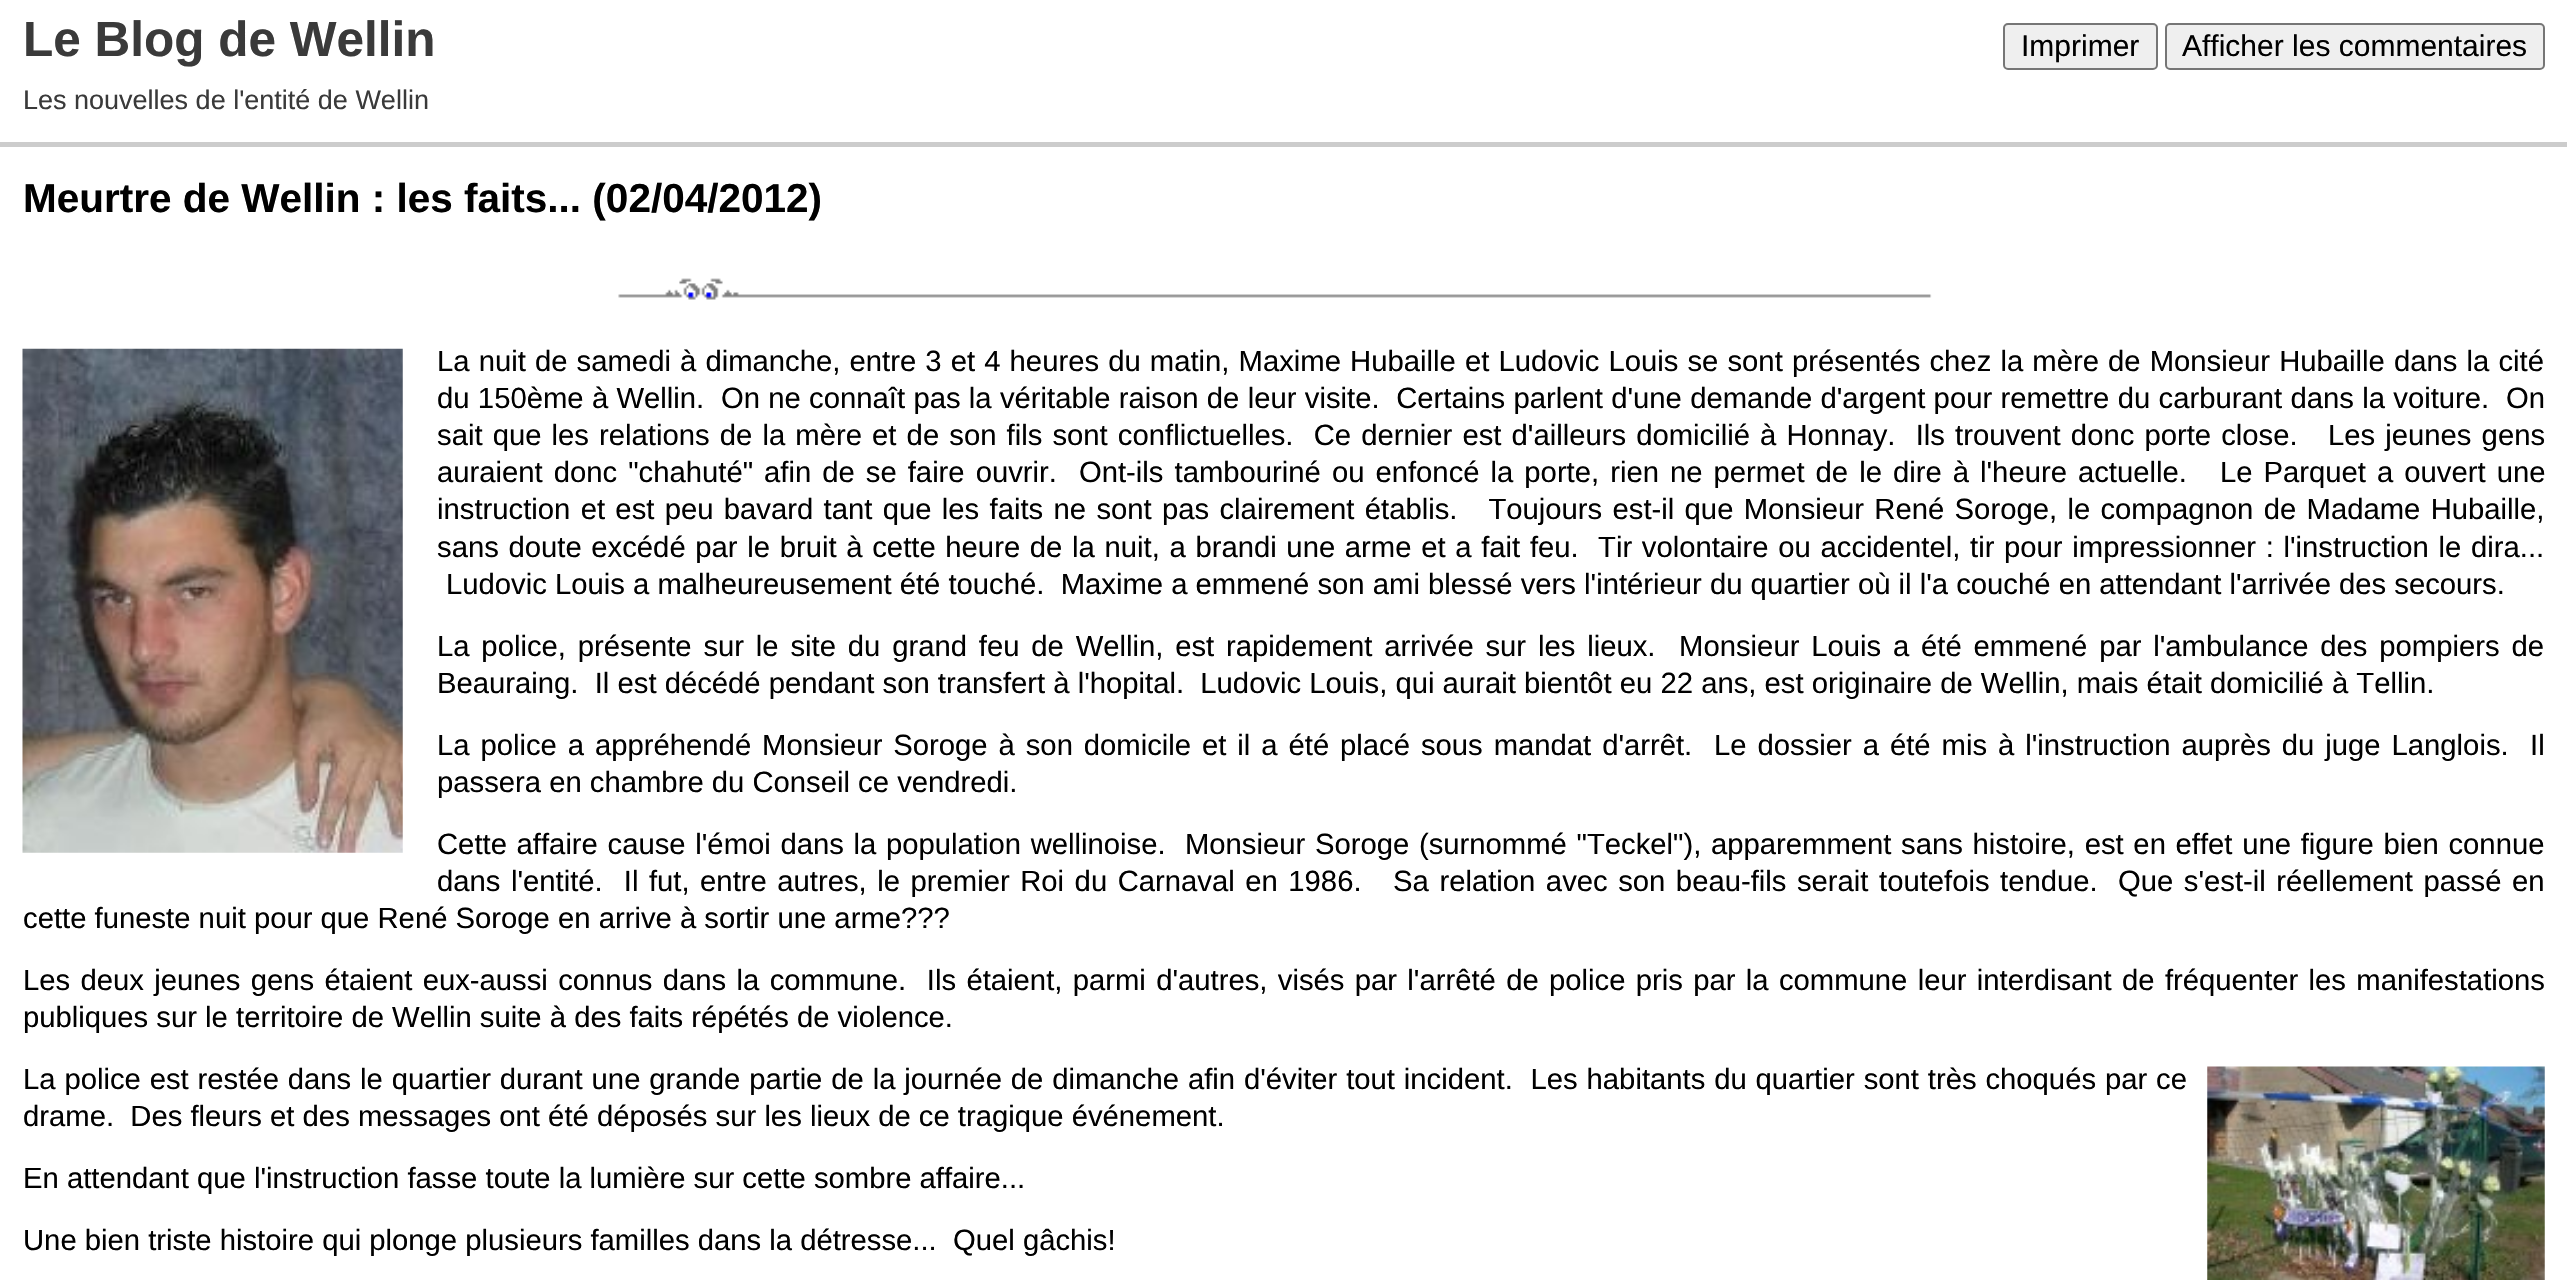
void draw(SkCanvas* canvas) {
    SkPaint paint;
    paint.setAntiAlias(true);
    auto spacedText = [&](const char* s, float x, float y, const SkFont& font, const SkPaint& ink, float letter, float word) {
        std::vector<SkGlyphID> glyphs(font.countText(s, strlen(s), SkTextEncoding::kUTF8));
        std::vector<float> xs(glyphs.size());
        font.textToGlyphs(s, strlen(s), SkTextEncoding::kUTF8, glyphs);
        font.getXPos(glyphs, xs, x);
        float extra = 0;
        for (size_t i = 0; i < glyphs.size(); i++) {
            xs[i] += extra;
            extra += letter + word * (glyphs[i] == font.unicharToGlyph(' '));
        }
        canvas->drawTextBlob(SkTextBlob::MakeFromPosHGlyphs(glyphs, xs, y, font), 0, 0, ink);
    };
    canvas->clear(0xFFFFFFFF);
    paint.setColor(0xFFCCCCCC);
    canvas->drawRect(SkRect::MakeXYWH(0, 142, 2567, 5), paint);
    SkFont font1(fontMgr->matchFamilyStyle("Liberation Sans", SkFontStyle::Bold()), 49.5f);
    font1.setSubpixel(true);
    paint.setColor(0xFF3A3A3A);
    canvas->drawString("Le Blog de Wellin", 23, 56, font1, paint);
    paint.setColor(0xFFEFEFEF);
    canvas->drawRoundRect(SkRect::MakeXYWH(2004, 24, 153, 45), 4, 4, paint);
    paint.setStyle(SkPaint::kStroke_Style);
    paint.setStrokeWidth(2);
    paint.setColor(0xFF767676);
    canvas->drawRoundRect(SkRect::MakeXYWH(2004, 24, 153, 45), 4, 4, paint);
    SkFont font2(fontMgr->matchFamilyStyle("Liberation Sans", SkFontStyle::Normal()), 30);
    font2.setSubpixel(true);
    paint.setStyle(SkPaint::kFill_Style);
    paint.setColor(0xFF000000);
    canvas->drawString("Imprimer", 2021, 56, font2, paint);
    paint.setColor(0xFFEFEFEF);
    canvas->drawRoundRect(SkRect::MakeXYWH(2166, 24, 378, 45), 4, 4, paint);
    paint.setStyle(SkPaint::kStroke_Style);
    paint.setColor(0xFF767676);
    canvas->drawRoundRect(SkRect::MakeXYWH(2166, 24, 378, 45), 4, 4, paint);
    paint.setStyle(SkPaint::kFill_Style);
    paint.setColor(0xFF000000);
    canvas->drawString("Afficher les commentaires", 2182, 56, font2, paint);
    SkFont font3(fontMgr->matchFamilyStyle("Liberation Sans", SkFontStyle::Normal()), 27);
    font3.setSubpixel(true);
    paint.setColor(0xFF3A3A3A);
    canvas->drawString("Les nouvelles de l'entité de Wellin", 23, 109, font3, paint);
    SkFont font4(fontMgr->matchFamilyStyle("Liberation Sans", SkFontStyle::Bold()), 40.5f);
    font4.setSubpixel(true);
    paint.setColor(0xFF000000);
    canvas->drawString("Meurtre de Wellin : les faits... (02/04/2012)", 23, 212, font4, paint);
    canvas->drawImageRect(SkImages::DeferredFromEncodedData(SkData::MakeFromFileName("img1.png")), SkRect::MakeXYWH(618, 278, 1314, 22), SkSamplingOptions());
    canvas->drawImageRect(SkImages::DeferredFromEncodedData(SkData::MakeFromFileName("img2.png")), SkRect::MakeXYWH(22, 348, 381, 505), SkSamplingOptions());
    SkFont font5(fontMgr->matchFamilyStyle("Liberation Sans", SkFontStyle::Normal()), 29.25f);
    font5.setSubpixel(true);
    spacedText("La nuit de samedi à dimanche, entre 3 et 4 heures du matin, Maxime Hubaille et Ludovic Louis se sont présentés chez la mère de Monsieur Hubaille dans la cité", 437, 371, font5, paint, 0, 1);
    spacedText("du 150ème à Wellin.  On ne connaît pas la véritable raison de leur visite.  Certains parlent d'une demande d'argent pour remettre du carburant dans la voiture.  On", 437, 408, font5, paint, 0, 0.2f);
    spacedText("sait que les relations de la mère et de son fils sont conflictuelles.  Ce dernier est d'ailleurs domicilié à Honnay.  Ils trouvent donc porte close.   Les jeunes gens", 437, 445, font5, paint, 0, 2);
    spacedText("auraient donc \"chahuté\" afin de se faire ouvrir.  Ont-ils tambouriné ou enfoncé la porte, rien ne permet de le dire à l'heure actuelle.   Le Parquet a ouvert une", 437, 482, font5, paint, 0, 2.9f);
    spacedText("instruction et est peu bavard tant que les faits ne sont pas clairement établis.   Toujours est-il que Monsieur René Soroge, le compagnon de Madame Hubaille,", 437, 519, font5, paint, 0, 2.2f);
    spacedText("sans doute excédé par le bruit à cette heure de la nuit, a brandi une arme et a fait feu.  Tir volontaire ou accidentel, tir pour impressionner : l'instruction le dira...", 437, 557, font5, paint, 0, 1.55f);
    canvas->drawString("Ludovic Louis a malheureusement été touché.  Maxime a emmené son ami blessé vers l'intérieur du quartier où il l'a couché en attendant l'arrivée des secours.", 446, 594, font5, paint);
    spacedText("La police, présente sur le site du grand feu de Wellin, est rapidement arrivée sur les lieux.  Monsieur Louis a été emmené par l'ambulance des pompiers de", 437, 656, font5, paint, 0, 3.7f);
    canvas->drawString("Beauraing.  Il est décédé pendant son transfert à l'hopital.  Ludovic Louis, qui aurait bientôt eu 22 ans, est originaire de Wellin, mais était domicilié à Tellin.", 437, 693, font5, paint);
    spacedText("La police a appréhendé Monsieur Soroge à son domicile et il a été placé sous mandat d'arrêt.  Le dossier a été mis à l'instruction auprès du juge Langlois.", 437, 755, font5, paint, 0, 2.8f);
    canvas->drawString("Il", 2530, 755, font5, paint);
    canvas->drawString("passera en chambre du Conseil ce vendredi.", 437, 792, font5, paint);
    spacedText("Cette affaire cause l'émoi dans la population wellinoise.  Monsieur Soroge (surnommé \"Teckel\"), apparemment sans histoire, est en effet une figure bien connue", 437, 854, font5, paint, 0, 1.55f);
    spacedText("dans l'entité.  Il fut, entre autres, le premier Roi du Carnaval en 1986.   Sa relation avec son beau-fils serait toutefois tendue.", 437, 891, font5, paint, 0, 2.4f);
    spacedText("Que s'est-il réellement passé en", 2118, 891, font5, paint, 0, 2.4f);
    canvas->drawString("cette funeste nuit pour que René Soroge en arrive à sortir une arme?\077?", 23, 928, font5, paint);
    spacedText("Les deux jeunes gens étaient eux-aussi connus dans la commune.  Ils étaient, parmi d'autres, visés par l'arrêté de police pris par la commune leur interdisant de fréquenter les manifestations", 23, 990, font5, paint, 0, 2.2f);
    canvas->drawString("publiques sur le territoire de Wellin suite à des faits répétés de violence.", 23, 1027, font5, paint);
    spacedText("La police est restée dans le quartier durant une grande partie de la journée de dimanche afin d'éviter tout incident.  Les habitants du quartier sont très choqués par ce", 23, 1089, font5, paint, 0, 0.75f);
    canvas->drawImageRect(SkImages::DeferredFromEncodedData(SkData::MakeFromFileName("img3.png")), SkRect::MakeXYWH(2207, 1066, 338, 214), SkSamplingOptions());
    canvas->drawString("drame.  Des fleurs et des messages ont été déposés sur les lieux de ce tragique événement.", 23, 1126, font5, paint);
    canvas->drawString("En attendant que l'instruction fasse toute la lumière sur cette sombre affaire...", 23, 1188, font5, paint);
    canvas->drawString("Une bien triste histoire qui plonge plusieurs familles dans la détresse...  Quel gâchis!", 23, 1250, font5, paint);
}
